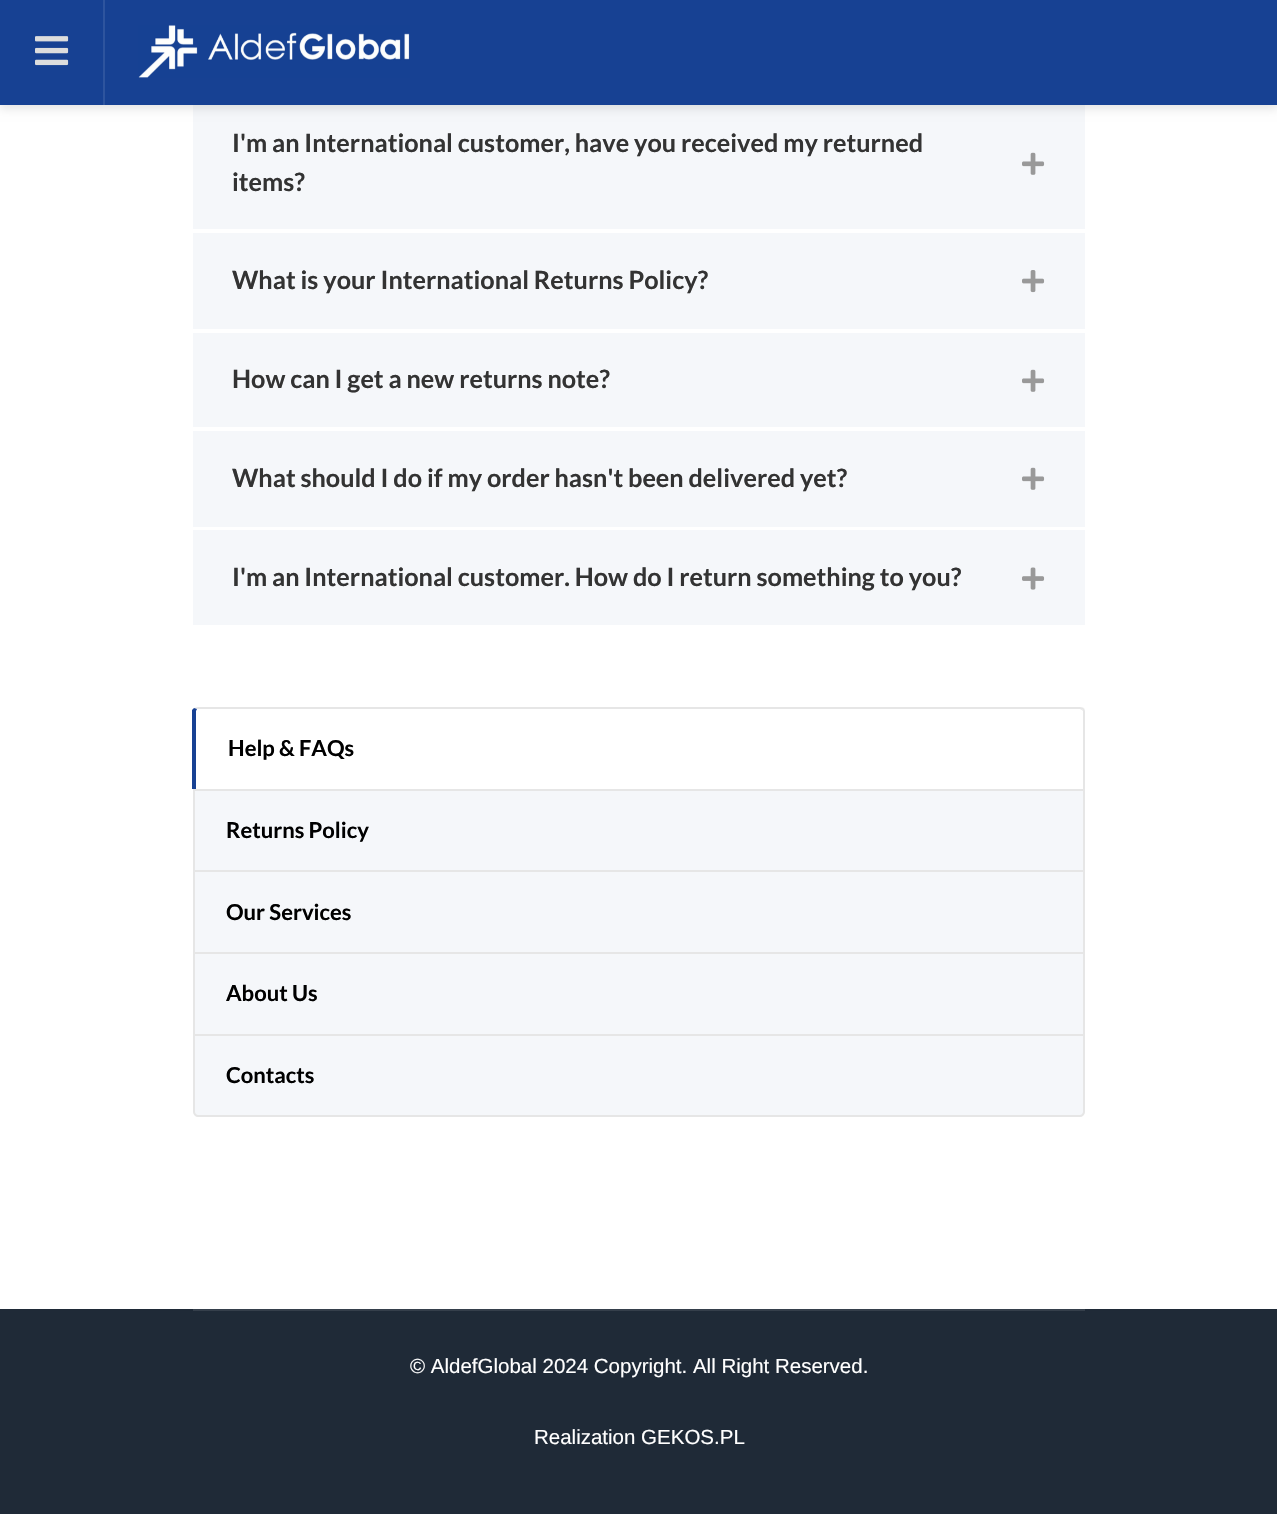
void draw(SkCanvas* canvas) {
    SkPaint paint;
    paint.setAntiAlias(true);
    canvas->clear(0xFFFFFFFF);
    paint.setColor(0xFFF5F7FA);
    canvas->drawRect(SkRect::MakeXYWH(193, 105, 892, 124), paint);
    paint.setColor(0x1A000000);
    paint.setMaskFilter(SkMaskFilter::MakeBlur(kNormal_SkBlurStyle, 4.5f));
    canvas->drawRect(SkRect::MakeXYWH(0, 4, 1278, 105), paint);
    paint.setMaskFilter(nullptr);
    paint.setColor(0xFF174193);
    canvas->drawRect(SkRect::MakeXYWH(0, 0, 1277, 105), paint);
    paint.setColor(0xFF2E549E);
    canvas->drawRect(SkRect::MakeXYWH(103, 0, 2, 105), paint);
    canvas->drawImageRect(SkImages::DeferredFromEncodedData(SkData::MakeFromFileName("img1.png")), SkRect::MakeXYWH(35, 36, 34, 30), SkSamplingOptions());
    canvas->drawImageRect(SkImages::DeferredFromEncodedData(SkData::MakeFromFileName("img2.png")), SkRect::MakeXYWH(138, 25, 272, 53), SkSamplingOptions());
    SkFont font1(fontMgr->matchFamilyStyle("Lato", SkFontStyle::Bold()), 25.2f);
    font1.setSubpixel(true);
    paint.setColor(0xFF333333);
    canvas->drawString("I'm an International customer, have you received my returned", 232, 152, font1, paint);
    canvas->drawImageRect(SkImages::DeferredFromEncodedData(SkData::MakeFromFileName("img3.png")), SkRect::MakeXYWH(1022, 152, 23, 23), SkSamplingOptions());
    canvas->drawString("items?", 232, 191, font1, paint);
    paint.setColor(0xFFF5F7FA);
    canvas->drawRect(SkRect::MakeXYWH(193, 233, 892, 96), paint);
    paint.setColor(0xFF333333);
    canvas->drawString("What is your International Returns Policy?", 232, 289, font1, paint);
    canvas->drawImageRect(SkImages::DeferredFromEncodedData(SkData::MakeFromFileName("img4.png")), SkRect::MakeXYWH(1022, 270, 23, 23), SkSamplingOptions());
    paint.setColor(0xFFF5F7FA);
    canvas->drawRect(SkRect::MakeXYWH(193, 333, 892, 94), paint);
    paint.setColor(0xFF333333);
    canvas->drawString("How can I get a new returns note?", 232, 388, font1, paint);
    canvas->drawImageRect(SkImages::DeferredFromEncodedData(SkData::MakeFromFileName("img3.png")), SkRect::MakeXYWH(1022, 369, 23, 23), SkSamplingOptions());
    paint.setColor(0xFFF5F7FA);
    canvas->drawRect(SkRect::MakeXYWH(193, 431, 892, 96), paint);
    paint.setColor(0xFF333333);
    canvas->drawString("What should I do if my order hasn't been delivered yet?", 232, 487, font1, paint);
    canvas->drawImageRect(SkImages::DeferredFromEncodedData(SkData::MakeFromFileName("img3.png")), SkRect::MakeXYWH(1022, 467, 23, 23), SkSamplingOptions());
    paint.setColor(0xFFF5F7FA);
    canvas->drawRect(SkRect::MakeXYWH(193, 530, 892, 95), paint);
    paint.setColor(0xFF333333);
    canvas->drawString("I'm an International customer. How do I return something to you?", 232, 586, font1, paint);
    canvas->drawImageRect(SkImages::DeferredFromEncodedData(SkData::MakeFromFileName("img5.png")), SkRect::MakeXYWH(1022, 567, 23, 23), SkSamplingOptions());
    paint.setColor(0xFFE6E6E6);
    canvas->drawPath(SkPathBuilder().moveTo(198, 707).lineTo(194, 708).lineTo(197, 709).lineTo(1080, 709).lineTo(1082, 710).lineTo(1084, 708).cubicTo(1083, 708, 1082, 707, 1080, 707).close().detach(), paint);
    canvas->drawPath(SkPathBuilder().moveTo(1085, 789).lineTo(1085, 711).lineTo(1084, 708).lineTo(1082, 710).lineTo(1083, 711).lineTo(1083, 789).close().detach(), paint);
    paint.setColor(0xFF174193);
    canvas->drawPath(SkPathBuilder().moveTo(192, 710).lineTo(194, 708).lineTo(197, 709).lineTo(196, 711).lineTo(196, 789).lineTo(192, 789).close().detach(), paint);
    SkFont font2(fontMgr->matchFamilyStyle("Lato", SkFontStyle::Bold()), 22);
    font2.setSubpixel(true);
    paint.setColor(0xFF000000);
    canvas->drawString("Help & FAQs", 228, 756, font2, paint);
    paint.setColor(0xFFF5F7FA);
    canvas->drawRect(SkRect::MakeXYWH(195, 791, 888, 79), paint);
    paint.setColor(0xFFE6E6E6);
    canvas->drawRect(SkRect::MakeXYWH(193, 789, 892, 2), paint);
    canvas->drawRect(SkRect::MakeXYWH(1083, 789, 2, 81), paint);
    canvas->drawRect(SkRect::MakeXYWH(193, 789, 2, 81), paint);
    paint.setColor(0xFF000000);
    canvas->drawString("Returns Policy", 226, 838, font2, paint);
    paint.setColor(0xFFF5F7FA);
    canvas->drawRect(SkRect::MakeXYWH(195, 872, 888, 80), paint);
    paint.setColor(0xFFE6E6E6);
    canvas->drawRect(SkRect::MakeXYWH(193, 870, 892, 2), paint);
    canvas->drawRect(SkRect::MakeXYWH(1083, 870, 2, 82), paint);
    canvas->drawRect(SkRect::MakeXYWH(193, 870, 2, 82), paint);
    paint.setColor(0xFF000000);
    canvas->drawString("Our Services", 226, 920, font2, paint);
    paint.setColor(0xFFF5F7FA);
    canvas->drawRect(SkRect::MakeXYWH(195, 954, 888, 80), paint);
    paint.setColor(0xFFE6E6E6);
    canvas->drawRect(SkRect::MakeXYWH(193, 952, 892, 2), paint);
    canvas->drawRect(SkRect::MakeXYWH(1083, 952, 2, 82), paint);
    canvas->drawRect(SkRect::MakeXYWH(193, 952, 2, 82), paint);
    paint.setColor(0xFF000000);
    canvas->drawString("About Us", 226, 1001, font2, paint);
    paint.setColor(0xFFF5F7FA);
    canvas->drawPath(SkPathBuilder().moveTo(194, 1035).lineTo(1084, 1035).lineTo(1084, 1112).cubicTo(1084, 1114, 1082, 1116, 1080, 1116).lineTo(198, 1116).cubicTo(196, 1116, 194, 1114, 194, 1112).close().detach(), paint);
    paint.setStyle(SkPaint::kStroke_Style);
    paint.setStrokeWidth(2);
    paint.setColor(0xFFE6E6E6);
    canvas->drawPath(SkPathBuilder().moveTo(194, 1035).lineTo(1084, 1035).lineTo(1084, 1112).cubicTo(1084, 1114, 1082, 1116, 1080, 1116).lineTo(198, 1116).cubicTo(196, 1116, 194, 1114, 194, 1112).close().detach(), paint);
    paint.setStyle(SkPaint::kFill_Style);
    paint.setColor(0xFF000000);
    canvas->drawString("Contacts", 226, 1083, font2, paint);
    paint.setColor(0xFF1F2A37);
    canvas->drawRect(SkRect::MakeXYWH(0, 1309, 1277, 205), paint);
    paint.setColor(0xFF353F4B);
    canvas->drawRect(SkRect::MakeXYWH(193, 1309, 892, 2), paint);
    SkFont font3(fontMgr->matchFamilyStyle("Liberation Sans", SkFontStyle::Normal()), 20.5f);
    font3.setSubpixel(true);
    paint.setColor(0xFFFFFFFF);
    canvas->drawString("© AldefGlobal 2024 Copyright. All Right Reserved.", 410, 1373, font3, paint);
    canvas->drawString("Realization GEKOS.PL", 534, 1444, font3, paint);
}
